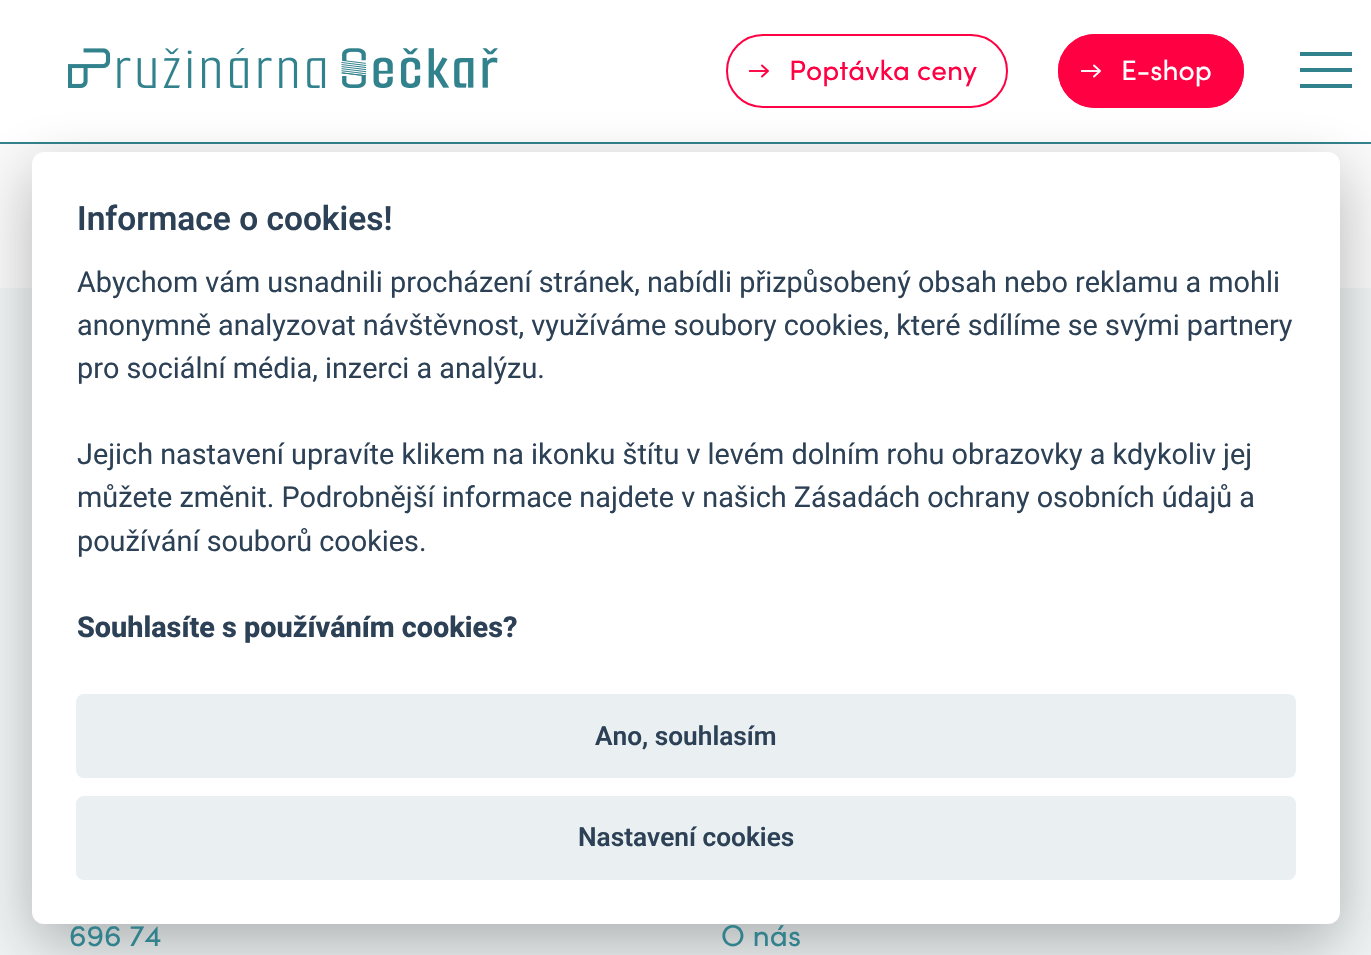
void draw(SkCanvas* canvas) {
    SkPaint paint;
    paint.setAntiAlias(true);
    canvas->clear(0xFFF9F9F9);
    paint.setColor(0xFFFFFFFF);
    canvas->drawRect(SkRect::MakeXYWH(0, 0, 1371, 142), paint);
    paint.setColor(0xFF32828D);
    canvas->drawRect(SkRect::MakeXYWH(0, 142, 1371, 2), paint);
    canvas->drawImageRect(SkImages::DeferredFromEncodedData(SkData::MakeFromFileName("img1.png")), SkRect::MakeXYWH(68, 48, 430, 40), SkSamplingOptions());
    paint.setColor(0xFFFF0D4C);
    canvas->drawRect(SkRect::MakeXYWH(749, 70, 19, 2), paint);
    paint.setStyle(SkPaint::kStroke_Style);
    paint.setStrokeWidth(1.9f);
    paint.setStrokeCap(SkPaint::kRound_Cap);
    paint.setColor(0xFFFF0043);
    canvas->drawPath(SkPathBuilder().moveTo(762, 76.5f).lineTo(768, 71).moveTo(762, 65.5f).lineTo(768, 71).detach(), paint);
    paint.setStrokeWidth(2);
    paint.setStrokeCap(SkPaint::kButt_Cap);
    canvas->drawRoundRect(SkRect::MakeXYWH(727, 35, 280, 72), 36, 36, paint);
    SkFont font1(fontMgr->matchFamilyStyle("Sofia", SkFontStyle::Normal()), 28);
    font1.setSubpixel(true);
    paint.setStyle(SkPaint::kFill_Style);
    canvas->drawString("Poptávka ceny", 789, 80, font1, paint);
    canvas->drawRoundRect(SkRect::MakeXYWH(1058, 34, 186, 74), 37, 37, paint);
    paint.setColor(0xFFFFF2F6);
    canvas->drawRect(SkRect::MakeXYWH(1081, 70, 19, 2), paint);
    paint.setStyle(SkPaint::kStroke_Style);
    paint.setStrokeWidth(1.9f);
    paint.setStrokeCap(SkPaint::kRound_Cap);
    paint.setColor(0xFFFFFFFF);
    canvas->drawPath(SkPathBuilder().moveTo(1094, 76.5f).lineTo(1100, 71).moveTo(1094, 65.5f).lineTo(1100, 71).detach(), paint);
    paint.setStrokeWidth(2);
    paint.setStrokeCap(SkPaint::kButt_Cap);
    paint.setColor(0xFFFF0043);
    canvas->drawRoundRect(SkRect::MakeXYWH(1059, 35, 184, 72), 36, 36, paint);
    paint.setStyle(SkPaint::kFill_Style);
    paint.setColor(0xFFFFFFFF);
    canvas->drawString("E-shop", 1121, 80, font1, paint);
    paint.setColor(0xFF32828D);
    canvas->drawRect(SkRect::MakeXYWH(1300, 52, 52, 4), paint);
    canvas->drawRect(SkRect::MakeXYWH(1300, 68, 52, 4), paint);
    canvas->drawRect(SkRect::MakeXYWH(1300, 84, 52, 4), paint);
    paint.setColor(0xFFEFF3F3);
    canvas->drawRect(SkRect::MakeXYWH(0, 288, 1371, 667), paint);
    paint.setColor(0x47020203);
    paint.setMaskFilter(SkMaskFilter::MakeBlur(kNormal_SkBlurStyle, 30));
    canvas->drawRoundRect(SkRect::MakeXYWH(32, 172, 1308, 772), 12, 12, paint);
    paint.setMaskFilter(nullptr);
    paint.setColor(0xFFFFFFFF);
    canvas->drawRoundRect(SkRect::MakeXYWH(32, 152, 1308, 772), 12, 12, paint);
    SkFont font2(fontMgr->matchFamilyStyle("Roboto", SkFontStyle(600, SkFontStyle::kNormal_Width, SkFontStyle::kUpright_Slant)), 33.5f);
    font2.setSubpixel(true);
    paint.setColor(0xFF2D4156);
    canvas->drawString("Informace o cookies!", 77, 230, font2, paint);
    SkFont font3(fontMgr->matchFamilyStyle("Roboto", SkFontStyle::Normal()), 28.8f);
    font3.setSubpixel(true);
    canvas->drawString("Abychom vám usnadnili procházení stránek, nabídli přizpůsobený obsah nebo reklamu a mohli", 77, 292, font3, paint);
    canvas->drawString("anonymně analyzovat návštěvnost, využíváme soubory cookies, které sdílíme se svými partnery", 77, 335, font3, paint);
    canvas->drawString("pro sociální média, inzerci a analýzu.", 77, 378, font3, paint);
    canvas->drawString("Jejich nastavení upravíte klikem na ikonku štítu v levém dolním rohu obrazovky a kdykoliv jej", 77, 464, font3, paint);
    canvas->drawString("můžete změnit. Podrobnější informace najdete v našich Zásadách ochrany osobních údajů a", 77, 507, font3, paint);
    canvas->drawString("používání souborů cookies.", 77, 551, font3, paint);
    SkFont font4(fontMgr->matchFamilyStyle("Roboto", SkFontStyle(800, SkFontStyle::kNormal_Width, SkFontStyle::kUpright_Slant)), 28.8f);
    font4.setSubpixel(true);
    canvas->drawString("Souhlasíte s používáním cookies?", 77, 637, font4, paint);
    paint.setColor(0xFFEAEFF2);
    canvas->drawRoundRect(SkRect::MakeXYWH(76, 694, 1220, 84), 8, 8, paint);
    SkFont font5(fontMgr->matchFamilyStyle("Roboto", SkFontStyle(600, SkFontStyle::kNormal_Width, SkFontStyle::kUpright_Slant)), 26.25f);
    font5.setSubpixel(true);
    paint.setColor(0xFF2D4156);
    canvas->drawString("Ano, souhlasím", 595, 745, font5, paint);
    paint.setColor(0xFFEAEFF2);
    canvas->drawRoundRect(SkRect::MakeXYWH(76, 796, 1220, 84), 8, 8, paint);
    paint.setColor(0xFF2D4156);
    canvas->drawString("Nastavení cookies", 578, 846, font5, paint);
    SkFont font6(fontMgr->matchFamilyStyle("Sofia", SkFontStyle::Normal()), 30);
    font6.setSubpixel(true);
    paint.setColor(0xFF32828D);
    canvas->drawString("696 74", 69, 946, font6, paint);
    canvas->drawString("O nás", 721, 946, font6, paint);
}
